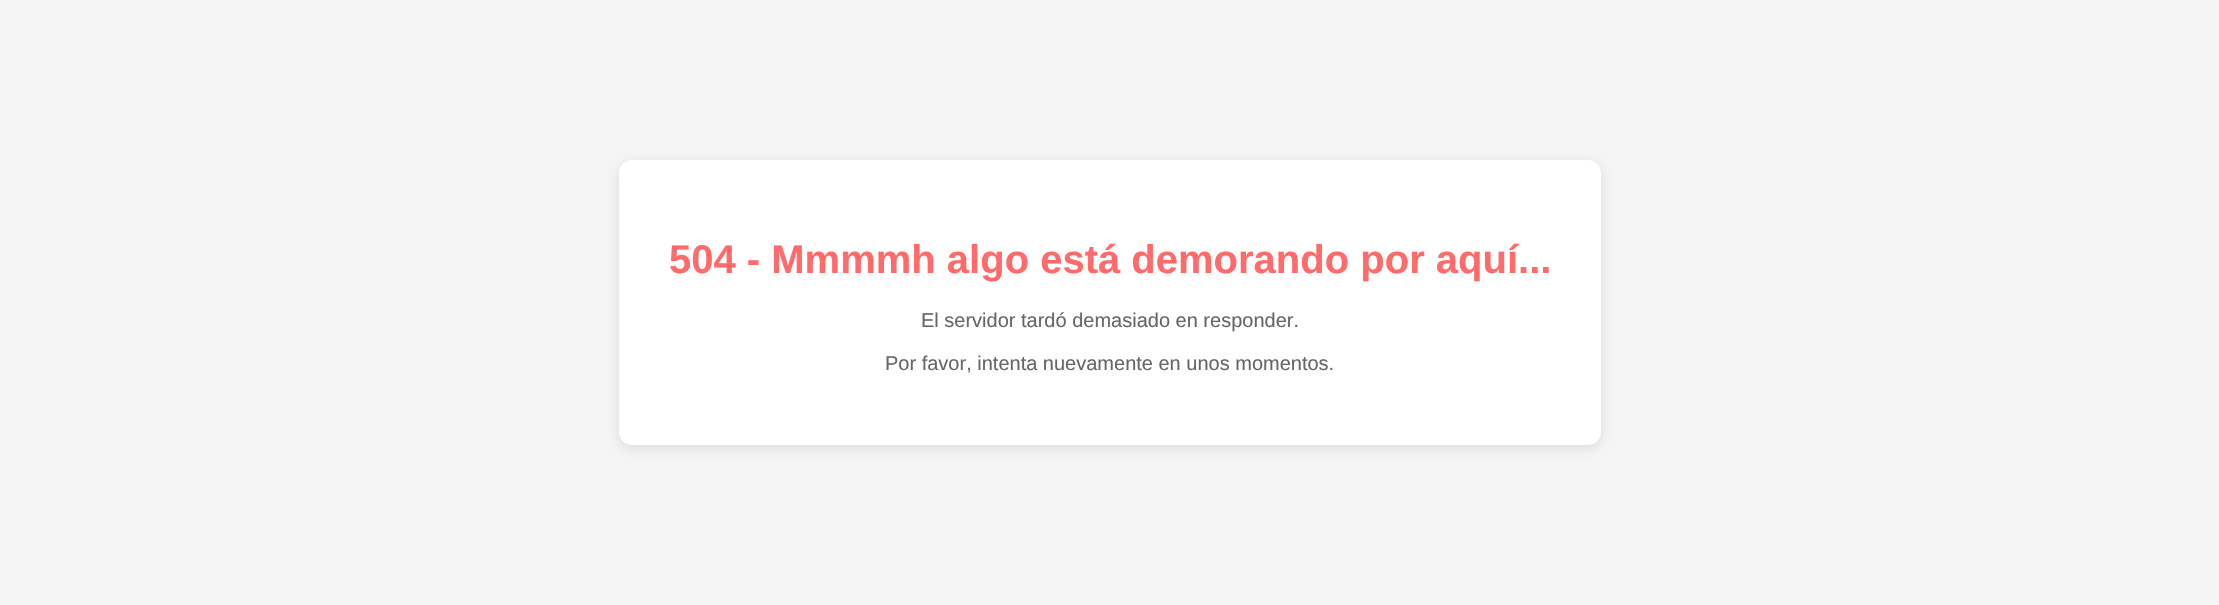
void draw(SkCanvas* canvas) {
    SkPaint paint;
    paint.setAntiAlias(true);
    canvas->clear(0xFFF5F5F5);
    paint.setColor(0x1A000000);
    paint.setMaskFilter(SkMaskFilter::MakeBlur(kNormal_SkBlurStyle, 6));
    canvas->drawRoundRect(SkRect::MakeXYWH(619, 163, 982, 285), 13, 13, paint);
    paint.setMaskFilter(nullptr);
    paint.setColor(0xFFFFFFFF);
    canvas->drawRoundRect(SkRect::MakeXYWH(619, 160, 982, 285), 13, 13, paint);
    SkFont font1(fontMgr->matchFamilyStyle("Liberation Sans", SkFontStyle::Bold()), 40);
    font1.setSubpixel(true);
    paint.setColor(0xFFFF6B6B);
    canvas->drawString("504 - Mmmmh algo está demorando por aquí...", 669, 273, font1, paint);
    SkFont font2(fontMgr->matchFamilyStyle("Liberation Sans", SkFontStyle::Normal()), 20);
    font2.setSubpixel(true);
    paint.setColor(0xFF666666);
    canvas->drawString("El servidor tardó demasiado en responder.", 921, 327, font2, paint);
    canvas->drawString("Por favor, intenta nuevamente en unos momentos.", 885, 370, font2, paint);
}
